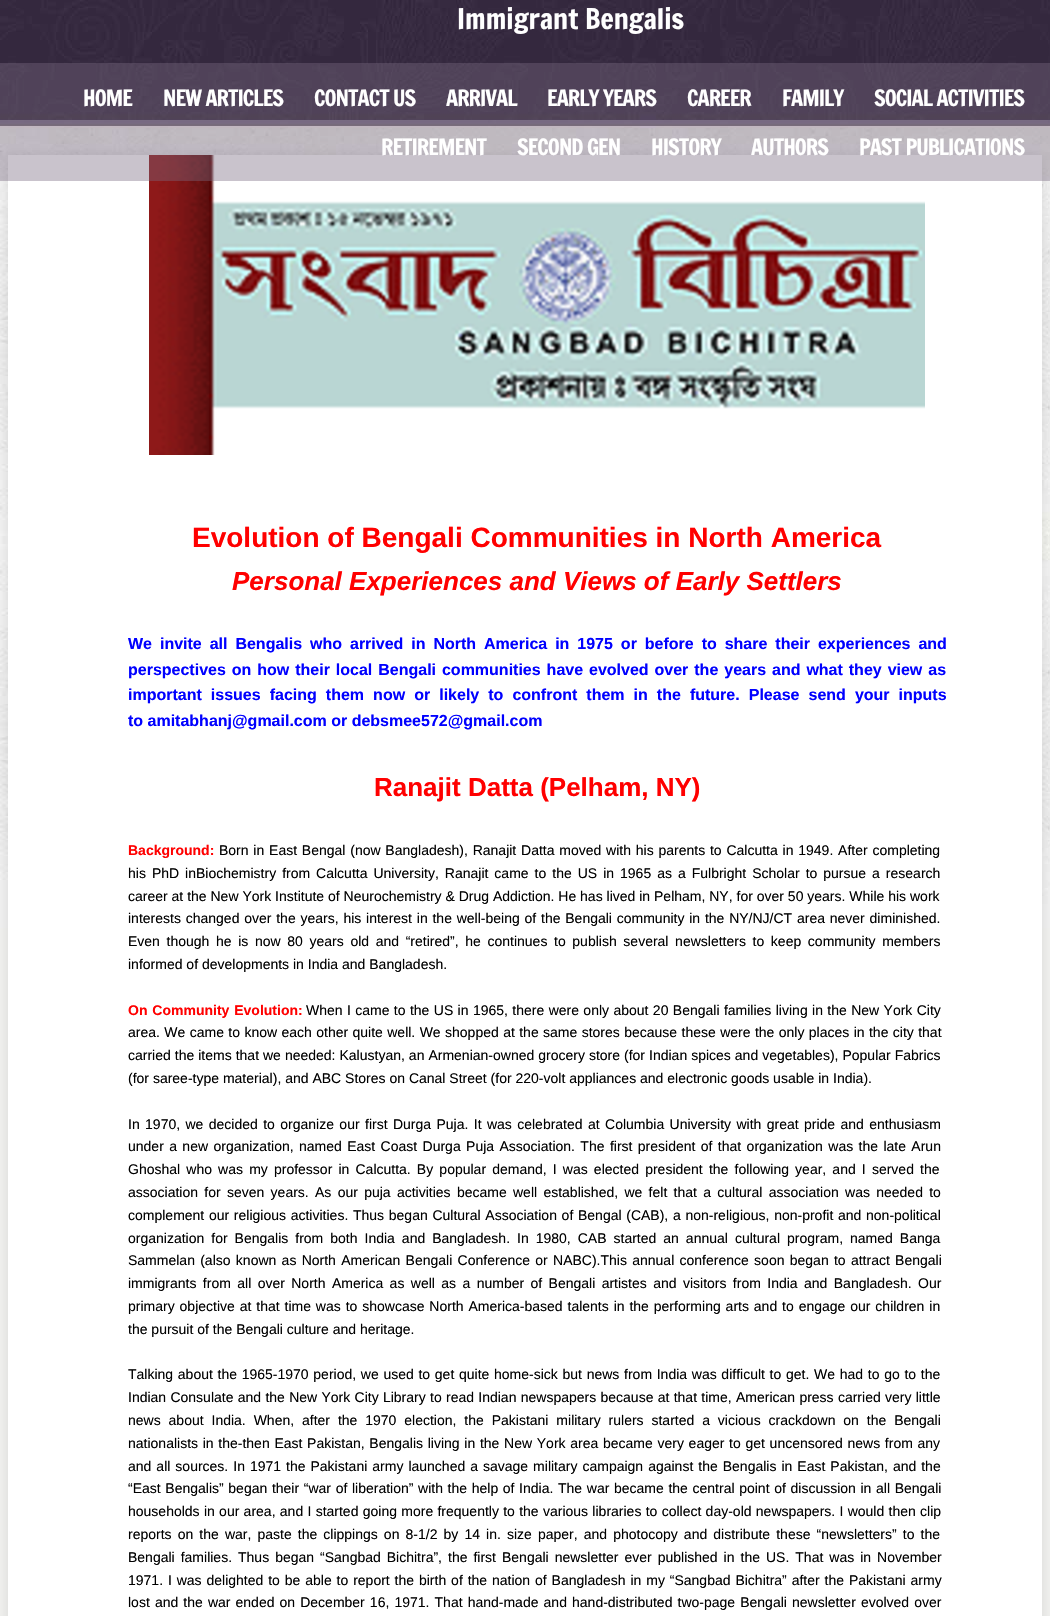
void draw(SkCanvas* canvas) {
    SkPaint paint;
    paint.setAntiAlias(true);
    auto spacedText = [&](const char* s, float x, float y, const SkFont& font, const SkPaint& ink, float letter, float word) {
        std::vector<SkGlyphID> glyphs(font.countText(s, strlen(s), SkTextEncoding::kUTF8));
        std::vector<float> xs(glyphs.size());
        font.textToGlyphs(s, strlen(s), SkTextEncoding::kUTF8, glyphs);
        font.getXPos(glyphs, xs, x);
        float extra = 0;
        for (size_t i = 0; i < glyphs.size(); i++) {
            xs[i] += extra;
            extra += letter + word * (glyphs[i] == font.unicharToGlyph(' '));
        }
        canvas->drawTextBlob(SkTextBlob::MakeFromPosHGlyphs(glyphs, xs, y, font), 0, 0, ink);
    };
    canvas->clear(0xFFF0F0EE);
    canvas->drawImageRect(SkImages::DeferredFromEncodedData(SkData::MakeFromFileName("img1.png")), SkRect::MakeXYWH(0, 0, 1050, 928), SkSamplingOptions());
    paint.setColor(0x1A000000);
    paint.setMaskFilter(SkMaskFilter::MakeBlur(kNormal_SkBlurStyle, 5));
    canvas->drawRect(SkRect::MakeXYWH(8, 155, 1034, 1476), paint);
    paint.setMaskFilter(nullptr);
    paint.setColor(0xFFFFFFFF);
    canvas->drawRect(SkRect::MakeXYWH(8, 155, 1034, 1461), paint);
    SkFont font1(fontMgr->matchFamilyStyle("Francois One", SkFontStyle::Normal()), 28);
    font1.setSubpixel(true);
    canvas->drawString("Immigrant Bengalis", 457, 29, font1, paint);
    canvas->drawImageRect(SkImages::DeferredFromEncodedData(SkData::MakeFromFileName("img2.png")), SkRect::MakeXYWH(149, 155, 776, 300), SkSamplingOptions());
    paint.setColor(0x66796A80);
    canvas->drawRect(SkRect::MakeXYWH(0, 63, 1050, 118), paint);
    SkFont font2(fontMgr->matchFamilyStyle("Francois One", SkFontStyle::Normal()), 22);
    font2.setSubpixel(true);
    paint.setColor(0xFFFFFFFF);
    spacedText("HOME", 83, 106, font2, paint, -1, 0);
    spacedText("NEW ARTICLES", 163, 106, font2, paint, -1, 0);
    spacedText("CONTACT US", 314, 106, font2, paint, -1, 0);
    spacedText("ARRIVAL", 446, 106, font2, paint, -1, 0);
    spacedText("EARLY YEARS", 547, 106, font2, paint, -1, 0);
    spacedText("CAREER", 687, 106, font2, paint, -1, 0);
    spacedText("FAMILY", 782, 106, font2, paint, -1, 0);
    spacedText("SOCIAL ACTIVITIES", 874, 106, font2, paint, -1, 0);
    spacedText("RETIREMENT", 381, 155, font2, paint, -1, 0);
    spacedText("SECOND GEN", 517, 155, font2, paint, -1, 0);
    spacedText("HISTORY", 651, 155, font2, paint, -1, 0);
    spacedText("AUTHORS", 751, 155, font2, paint, -1, 0);
    spacedText("PAST PUBLICATIONS", 859, 155, font2, paint, -1, 0);
    SkFont font3(fontMgr->matchFamilyStyle("Liberation Sans", SkFontStyle::Bold()), 28);
    font3.setSubpixel(true);
    paint.setColor(0xFFFF0000);
    canvas->drawString("Evolution of Bengali Communities in North America", 192, 547, font3, paint);
    SkFont font4(fontMgr->matchFamilyStyle("Liberation Sans", SkFontStyle::BoldItalic()), 26);
    font4.setSubpixel(true);
    canvas->drawString("Personal Experiences and Views of Early Settlers", 232, 590, font4, paint);
    SkFont font5(fontMgr->matchFamilyStyle("Liberation Sans", SkFontStyle::Bold()), 16);
    font5.setSubpixel(true);
    paint.setColor(0xFF0000FF);
    spacedText("We invite all Bengalis who arrived in North America in 1975 or before to share their experiences and", 128, 649, font5, paint, 0, 3.5f);
    spacedText("perspectives on how their local Bengali communities have evolved over the years and what they view as", 128, 675, font5, paint, 0, 1.5f);
    spacedText("important issues facing them now or likely to confront them in the future. Please send your inputs", 128, 700, font5, paint, 0, 4.6f);
    canvas->drawString("to amitabhanj@gmail.com or debsmee572@gmail.com", 128, 726, font5, paint);
    SkFont font6(fontMgr->matchFamilyStyle("Liberation Sans", SkFontStyle::Bold()), 26);
    font6.setSubpixel(true);
    paint.setColor(0xFFFF0000);
    canvas->drawString("Ranajit Datta (Pelham, NY)", 374, 796, font6, paint);
    SkFont font7(fontMgr->matchFamilyStyle("Liberation Sans", SkFontStyle::Bold()), 14);
    font7.setSubpixel(true);
    canvas->drawString("Background:", 128, 855, font7, paint);
    SkFont font8(fontMgr->matchFamilyStyle("Liberation Sans", SkFontStyle::Normal()), 14);
    font8.setSubpixel(true);
    paint.setColor(0xFF000000);
    spacedText("Born in East Bengal (now Bangladesh), Ranajit Datta moved with his parents to Calcutta in 1949. After completing", 219, 855, font8, paint, 0, 0.9f);
    spacedText("his PhD inBiochemistry from Calcutta University, Ranajit came to the US in 1965 as a Fulbright Scholar to pursue a research", 128, 878, font8, paint, 0, 2.1f);
    canvas->drawString("career at the New York Institute of Neurochemistry & Drug Addiction. He has lived in Pelham, NY, for over 50 years. While his work", 128, 901, font8, paint);
    spacedText("interests changed over the years, his interest in the well-being of the Bengali community in the NY/NJ/CT area never diminished.", 128, 923, font8, paint, 0, 0.9f);
    spacedText("Even though he is now 80 years old and “retired”, he continues to publish several newsletters to keep community members", 128, 946, font8, paint, 0, 2.75f);
    canvas->drawString("informed of developments in India and Bangladesh.", 128, 969, font8, paint);
    paint.setColor(0xFFFF0000);
    spacedText("On Community Evolution:", 128, 1015, font7, paint, 0, 1);
    paint.setColor(0xFF000000);
    spacedText("When I came to the US in 1965, there were only about 20 Bengali families living in the New York City", 306, 1015, font8, paint, 0, 0.5f);
    spacedText("area. We came to know each other quite well. We shopped at the same stores because these were the only places in the city that", 128, 1037, font8, paint, 0, 0.5f);
    spacedText("carried the items that we needed: Kalustyan, an Armenian-owned grocery store (for Indian spices and vegetables), Popular Fabrics", 128, 1060, font8, paint, 0, 0.1f);
    canvas->drawString("(for saree-type material), and ABC Stores on Canal Street (for 220-volt appliances and electronic goods usable in India).", 128, 1083, font8, paint);
    spacedText("In 1970, we decided to organize our first Durga Puja. It was celebrated at Columbia University with great pride and enthusiasm", 128, 1129, font8, paint, 0, 1.5f);
    spacedText("under a new organization, named East Coast Durga Puja Association. The first president of that organization was the late Arun", 128, 1151, font8, paint, 0, 1.5f);
    spacedText("Ghoshal who was my professor in Calcutta. By popular demand, I was elected president the following year, and I served the", 128, 1174, font8, paint, 0, 2.25f);
    spacedText("association for seven years. As our puja activities became well established, we felt that a cultural association was needed to", 128, 1197, font8, paint, 0, 2.4f);
    spacedText("complement our religious activities. Thus began Cultural Association of Bengal (CAB), a non-religious, non-profit and non-political", 128, 1220, font8, paint, 0, 0.8f);
    spacedText("organization for Bengalis from both India and Bangladesh. In 1980, CAB started an annual cultural program, named Banga", 128, 1243, font8, paint, 0, 3.1f);
    spacedText("Sammelan (also known as North American Bengali Conference or NABC).This annual conference soon began to attract Bengali", 128, 1265, font8, paint, 0, 1.4f);
    spacedText("immigrants from all over North America as well as a number of Bengali artistes and visitors from India and Bangladesh. Our", 128, 1288, font8, paint, 0, 2.5f);
    spacedText("primary objective at that time was to showcase North America-based talents in the performing arts and to engage our children in", 128, 1311, font8, paint, 0, 1);
    canvas->drawString("the pursuit of the Bengali culture and heritage.", 128, 1334, font8, paint);
    spacedText("Talking about the 1965-1970 period, we used to get quite home-sick but news from India was difficult to get. We had to go to the", 128, 1379, font8, paint, 0, 0.8f);
    spacedText("Indian Consulate and the New York City Library to read Indian newspapers because at that time, American press carried very little", 128, 1402, font8, paint, 0, 0.4f);
    spacedText("news about India. When, after the 1970 election, the Pakistani military rulers started a vicious crackdown on the Bengali", 128, 1425, font8, paint, 0, 4);
    spacedText("nationalists in the-then East Pakistan, Bengalis living in the New York area became very eager to get uncensored news from any", 128, 1448, font8, paint, 0, 0.8f);
    spacedText("and all sources. In 1971 the Pakistani army launched a savage military campaign against the Bengalis in East Pakistan, and the", 128, 1471, font8, paint, 0, 1.1f);
    spacedText("“East Bengalis” began their “war of liberation” with the help of India. The war became the central point of discussion in all Bengali", 128, 1493, font8, paint, 0, 0.75f);
    spacedText("households in our area, and I started going more frequently to the various libraries to collect day-old newspapers. I would then clip", 128, 1516, font8, paint, 0, 0.4f);
    spacedText("reports on the war, paste the clippings on 8-1/2 by 14 in. size paper, and photocopy and distribute these “newsletters” to the", 128, 1539, font8, paint, 0, 2.2f);
    spacedText("Bengali families. Thus began “Sangbad Bichitra”, the first Bengali newsletter ever published in the US. That was in November", 128, 1562, font8, paint, 0, 2.1f);
    spacedText("1971. I was delighted to be able to report the birth of the nation of Bangladesh in my “Sangbad Bichitra” after the Pakistani army", 128, 1585, font8, paint, 0, 1);
    spacedText("lost and the war ended on December 16, 1971. That hand-made and hand-distributed two-page Bengali newsletter evolved over", 128, 1607, font8, paint, 0, 1.2f);
}
